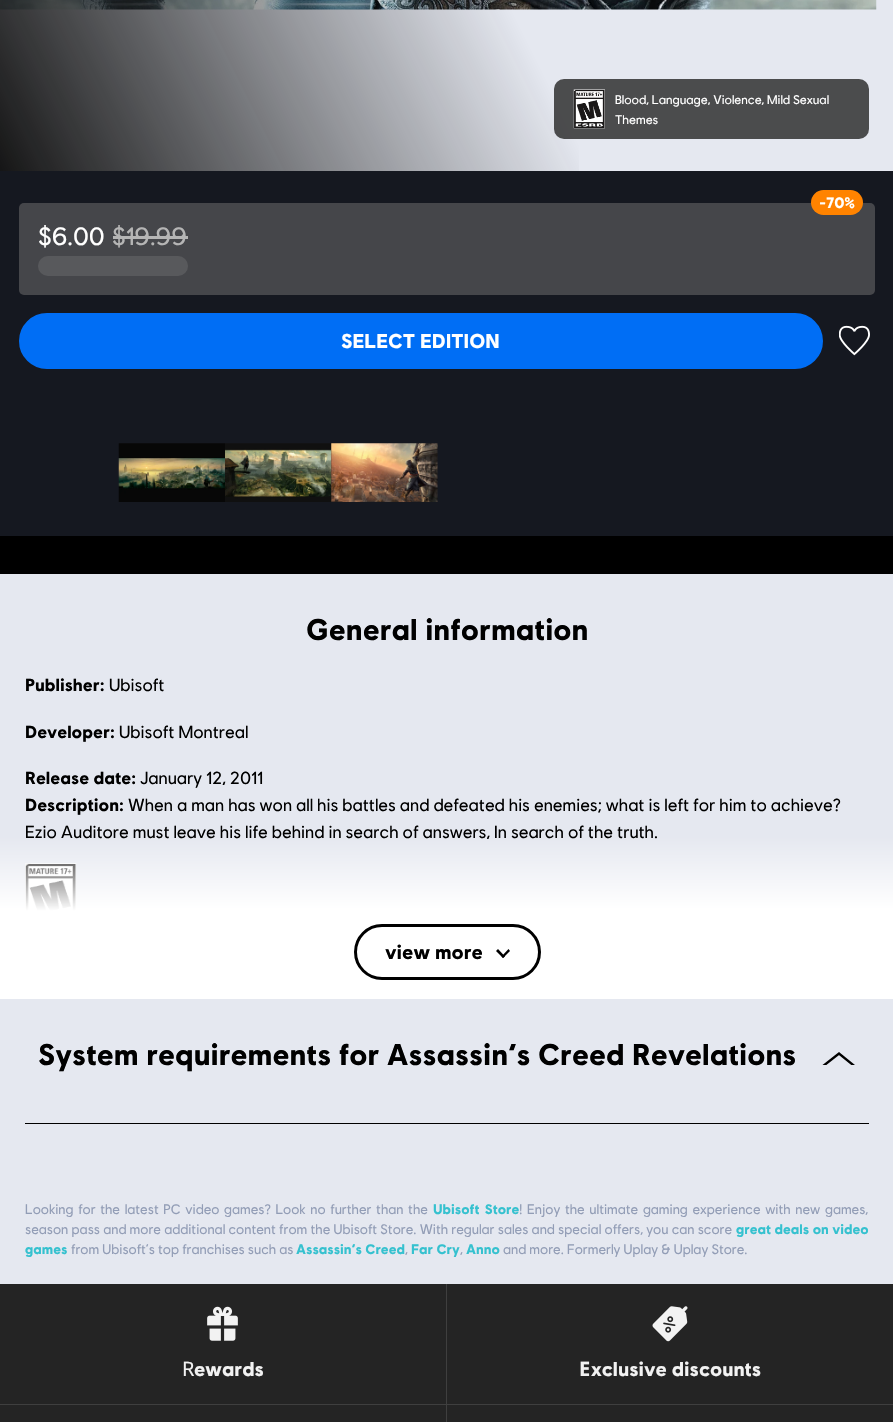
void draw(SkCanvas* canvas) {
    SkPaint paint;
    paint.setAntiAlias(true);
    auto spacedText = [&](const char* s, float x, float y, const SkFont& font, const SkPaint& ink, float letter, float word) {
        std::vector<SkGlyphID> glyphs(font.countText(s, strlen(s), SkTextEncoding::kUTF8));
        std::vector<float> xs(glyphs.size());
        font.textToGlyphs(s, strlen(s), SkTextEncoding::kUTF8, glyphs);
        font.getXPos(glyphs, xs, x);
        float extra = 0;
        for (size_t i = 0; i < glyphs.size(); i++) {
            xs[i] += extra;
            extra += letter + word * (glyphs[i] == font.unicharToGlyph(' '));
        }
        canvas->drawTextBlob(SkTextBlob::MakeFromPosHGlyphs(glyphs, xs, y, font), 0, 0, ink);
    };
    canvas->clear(0xFFE5E8F0);
    canvas->drawImageRect(SkImages::DeferredFromEncodedData(SkData::MakeFromFileName("img1.png")), SkRect::MakeXYWH(0, 0, 877, 10), SkSamplingOptions());
    {
        const SkColor colors[] = {0x000D0D0D, 0xF50D0D0D};
        const float stops[] = {0.46f, 1};
        const SkPoint ends[] = {{886, -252}, {7.9f, 187}};
        paint.setShader(SkGradientShader::MakeLinear(ends, colors, stops, 2, SkTileMode::kClamp));
        paint.setAlpha(255);
    }
    canvas->drawRect(SkRect::MakeXYWH(0, 0, 579, 171), paint);
    paint.setShader(nullptr);
    paint.setColor(0xCC242424);
    canvas->drawRoundRect(SkRect::MakeXYWH(554, 79, 315, 60), 10, 10, paint);
    canvas->drawImageRect(SkImages::DeferredFromEncodedData(SkData::MakeFromFileName("img2.png")), SkRect::MakeXYWH(573, 89, 32, 40), SkSamplingOptions());
    SkFont font1(fontMgr->matchFamilyStyle("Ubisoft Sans", SkFontStyle::Normal()), 12.5f);
    font1.setSubpixel(true);
    paint.setColor(0xFFFFFFFF);
    canvas->drawString("Blood, Language, Violence, Mild Sexual", 615, 104, font1, paint);
    canvas->drawString("Themes", 615, 124, font1, paint);
    paint.setColor(0xFF151820);
    canvas->drawRect(SkRect::MakeXYWH(0, 171, 893, 365), paint);
    paint.setColor(0xFF45464A);
    canvas->drawRoundRect(SkRect::MakeXYWH(19, 203, 856, 92), 5, 5, paint);
    paint.setColor(0xFFFF8300);
    canvas->drawRoundRect(SkRect::MakeXYWH(811, 190, 52, 25), 12.5f, 12.5f, paint);
    SkFont font2(fontMgr->matchFamilyStyle("Ubisoft Sans", SkFontStyle::Bold()), 15);
    font2.setSubpixel(true);
    paint.setColor(0xFFFFFFFF);
    canvas->drawString("-70%", 819, 208, font2, paint);
    SkFont font3(fontMgr->matchFamilyStyle("Ubisoft Sans", SkFontStyle::Normal()), 25);
    font3.setSubpixel(true);
    canvas->drawString("$6.00", 38, 245, font3, paint);
    paint.setColor(0xFFB5B5B5);
    canvas->drawString("$19.99", 112, 245, font3, paint);
    canvas->drawRect(SkRect::MakeXYWH(113, 236, 75, 3), paint);
    paint.setColor(0xFF58595C);
    canvas->drawRoundRect(SkRect::MakeXYWH(38, 256, 150, 20), 10, 10, paint);
    paint.setColor(0xFF006EF5);
    canvas->drawRoundRect(SkRect::MakeXYWH(20.5f, 314.5f, 801, 53), 26.5f, 26.5f, paint);
    paint.setStyle(SkPaint::kStroke_Style);
    paint.setStrokeWidth(3);
    canvas->drawRoundRect(SkRect::MakeXYWH(20.5f, 314.5f, 801, 53), 26.5f, 26.5f, paint);
    SkFont font4(fontMgr->matchFamilyStyle("Ubisoft Sans", SkFontStyle::Bold()), 20);
    font4.setSubpixel(true);
    paint.setStyle(SkPaint::kFill_Style);
    paint.setColor(0xFFFFFFFF);
    canvas->drawString("SELECT EDITION", 341, 348, font4, paint);
    canvas->drawImageRect(SkImages::DeferredFromEncodedData(SkData::MakeFromFileName("img3.png")), SkRect::MakeXYWH(839, 325, 31, 31), SkSamplingOptions());
    canvas->drawImageRect(SkImages::DeferredFromEncodedData(SkData::MakeFromFileName("img4.png")), SkRect::MakeXYWH(118, 443, 107, 59), SkSamplingOptions());
    canvas->drawImageRect(SkImages::DeferredFromEncodedData(SkData::MakeFromFileName("img5.png")), SkRect::MakeXYWH(225, 443, 107, 59), SkSamplingOptions());
    canvas->drawImageRect(SkImages::DeferredFromEncodedData(SkData::MakeFromFileName("img6.png")), SkRect::MakeXYWH(331, 443, 107, 59), SkSamplingOptions());
    paint.setColor(0xFF000000);
    canvas->drawRect(SkRect::MakeXYWH(0, 536, 893, 38), paint);
    SkFont font5(fontMgr->matchFamilyStyle("Ubisoft Sans", SkFontStyle::Bold()), 30);
    font5.setSubpixel(true);
    canvas->drawString("General information", 306, 640, font5, paint);
    SkFont font6(fontMgr->matchFamilyStyle("Ubisoft Sans", SkFontStyle::Bold()), 17.5f);
    font6.setSubpixel(true);
    canvas->drawString("Publisher:", 25, 691, font6, paint);
    SkFont font7(fontMgr->matchFamilyStyle("Ubisoft Sans", SkFontStyle::Normal()), 17.5f);
    font7.setSubpixel(true);
    canvas->drawString("Ubisoft", 109, 691, font7, paint);
    canvas->drawString("Developer:", 25, 738, font6, paint);
    canvas->drawString("Ubisoft Montreal", 119, 738, font7, paint);
    canvas->drawString("Release date:", 25, 784, font6, paint);
    canvas->drawString("January 12, 2011", 140, 784, font7, paint);
    canvas->drawString("Description:", 25, 811, font6, paint);
    canvas->drawString("When a man has won all his battles and defeated his enemies; what is left for him to achieve?", 128, 811, font7, paint);
    canvas->drawString("Ezio Auditore must leave his life behind in search of answers, In search of the truth.", 25, 838, font7, paint);
    canvas->drawImageRect(SkImages::DeferredFromEncodedData(SkData::MakeFromFileName("img7.png")), SkRect::MakeXYWH(25, 863, 52, 48), SkSamplingOptions());
    {
        const SkColor colors[] = {0xFFFFFFFF, 0x00FFFFFF};
        const float stops[] = {0.54f, 1};
        const SkPoint ends[] = {{447, 999}, {447, 836}};
        paint.setShader(SkGradientShader::MakeLinear(ends, colors, stops, 2, SkTileMode::kClamp));
        paint.setAlpha(255);
    }
    canvas->drawRect(SkRect::MakeXYWH(0, 838, 893, 161), paint);
    paint.setStyle(SkPaint::kStroke_Style);
    paint.setShader(nullptr);
    paint.setColor(0xFF000000);
    canvas->drawRoundRect(SkRect::MakeXYWH(355.5f, 925.5f, 184, 53), 26.5f, 26.5f, paint);
    paint.setStyle(SkPaint::kFill_Style);
    canvas->drawString("view more", 385, 959, font4, paint);
    canvas->drawPath(SkPathBuilder().moveTo(510, 951).lineTo(503, 958).lineTo(501.5f, 956.5f).lineTo(508.5f, 949).close().detach(), paint);
    canvas->drawPath(SkPathBuilder().moveTo(505, 956.5f).lineTo(503, 958).lineTo(496, 951).lineTo(498, 949).close().detach(), paint);
    canvas->drawString("System requirements for Assassin’s Creed Revelations", 38, 1065, font5, paint);
    canvas->save();
    canvas->clipRect(SkRect::MakeXYWH(821, 1051, 34, 14));
    paint.setStyle(SkPaint::kStroke_Style);
    paint.setStrokeWidth(2.4f);
    canvas->drawPath(SkPathBuilder().moveTo(855, 1066.5f).lineTo(839, 1053.5f).lineTo(822.5f, 1066.5f).detach(), paint);
    canvas->restore();
    paint.setStyle(SkPaint::kFill_Style);
    canvas->drawRect(SkRect::MakeXYWH(25, 1123, 844, 1), paint);
    SkFont font8(fontMgr->matchFamilyStyle("Ubisoft Sans", SkFontStyle::Normal()), 13.75f);
    font8.setSubpixel(true);
    paint.setColor(0xFF929DB6);
    spacedText("Looking for the latest PC video games? Look no further than the", 25, 1214, font8, paint, 0, 1.5f);
    SkFont font9(fontMgr->matchFamilyStyle("Ubisoft Sans", SkFontStyle::Bold()), 13.75f);
    font9.setSubpixel(true);
    paint.setColor(0xFF35C1CF);
    spacedText("Ubisoft Store", 433, 1214, font9, paint, 0, 2);
    paint.setColor(0xFF929DB6);
    spacedText("! Enjoy the ultimate gaming experience with new games,", 519, 1214, font8, paint, 0, 1.5f);
    spacedText("season pass and more additional content from the Ubisoft Store. With regular sales and special offers, you can score", 25, 1234, font8, paint, 0, 0.1f);
    paint.setColor(0xFF35C1CF);
    spacedText("great deals on video", 736, 1234, font9, paint, 0, 0.1f);
    canvas->drawString("games", 25, 1254, font9, paint);
    paint.setColor(0xFF929DB6);
    canvas->drawString("from Ubisoft’s top franchises such as", 71, 1254, font8, paint);
    paint.setColor(0xFF35C1CF);
    canvas->drawString("Assassin’s Creed", 296, 1254, font9, paint);
    paint.setColor(0xFF929DB6);
    canvas->drawString(",", 405, 1254, font8, paint);
    paint.setColor(0xFF35C1CF);
    canvas->drawString("Far Cry", 411, 1254, font9, paint);
    paint.setColor(0xFF929DB6);
    canvas->drawString(",", 460, 1254, font8, paint);
    paint.setColor(0xFF35C1CF);
    canvas->drawString("Anno", 466, 1254, font9, paint);
    paint.setColor(0xFF929DB6);
    canvas->drawString("and more. Formerly Uplay & Uplay Store.", 503, 1254, font8, paint);
    paint.setColor(0xFF242424);
    canvas->drawRect(SkRect::MakeXYWH(0, 1284, 893, 138), paint);
    paint.setColor(0xFF3F3F3F);
    canvas->drawRect(SkRect::MakeXYWH(446, 1284, 1, 138), paint);
    canvas->drawRect(SkRect::MakeXYWH(0, 1404, 893, 1), paint);
    canvas->drawImageRect(SkImages::DeferredFromEncodedData(SkData::MakeFromFileName("img8.png")), SkRect::MakeXYWH(207, 1306, 31, 35), SkSamplingOptions());
    SkFont font10(fontMgr->matchFamilyStyle("Noto Sans", SkFontStyle::Normal()), 20);
    font10.setSubpixel(true);
    paint.setColor(0xFFF2F2F2);
    canvas->drawString("R", 182, 1376, font10, paint);
    canvas->drawString("ewards", 194, 1376, font4, paint);
    canvas->drawImageRect(SkImages::DeferredFromEncodedData(SkData::MakeFromFileName("img9.png")), SkRect::MakeXYWH(652, 1306, 36, 36), SkSamplingOptions());
    SkFont font11(fontMgr->matchFamilyStyle("Noto Sans", SkFontStyle::Bold()), 20);
    font11.setSubpixel(true);
    canvas->drawString("E", 579, 1376, font11, paint);
    canvas->drawString("xclusive discounts", 591, 1376, font4, paint);
}
